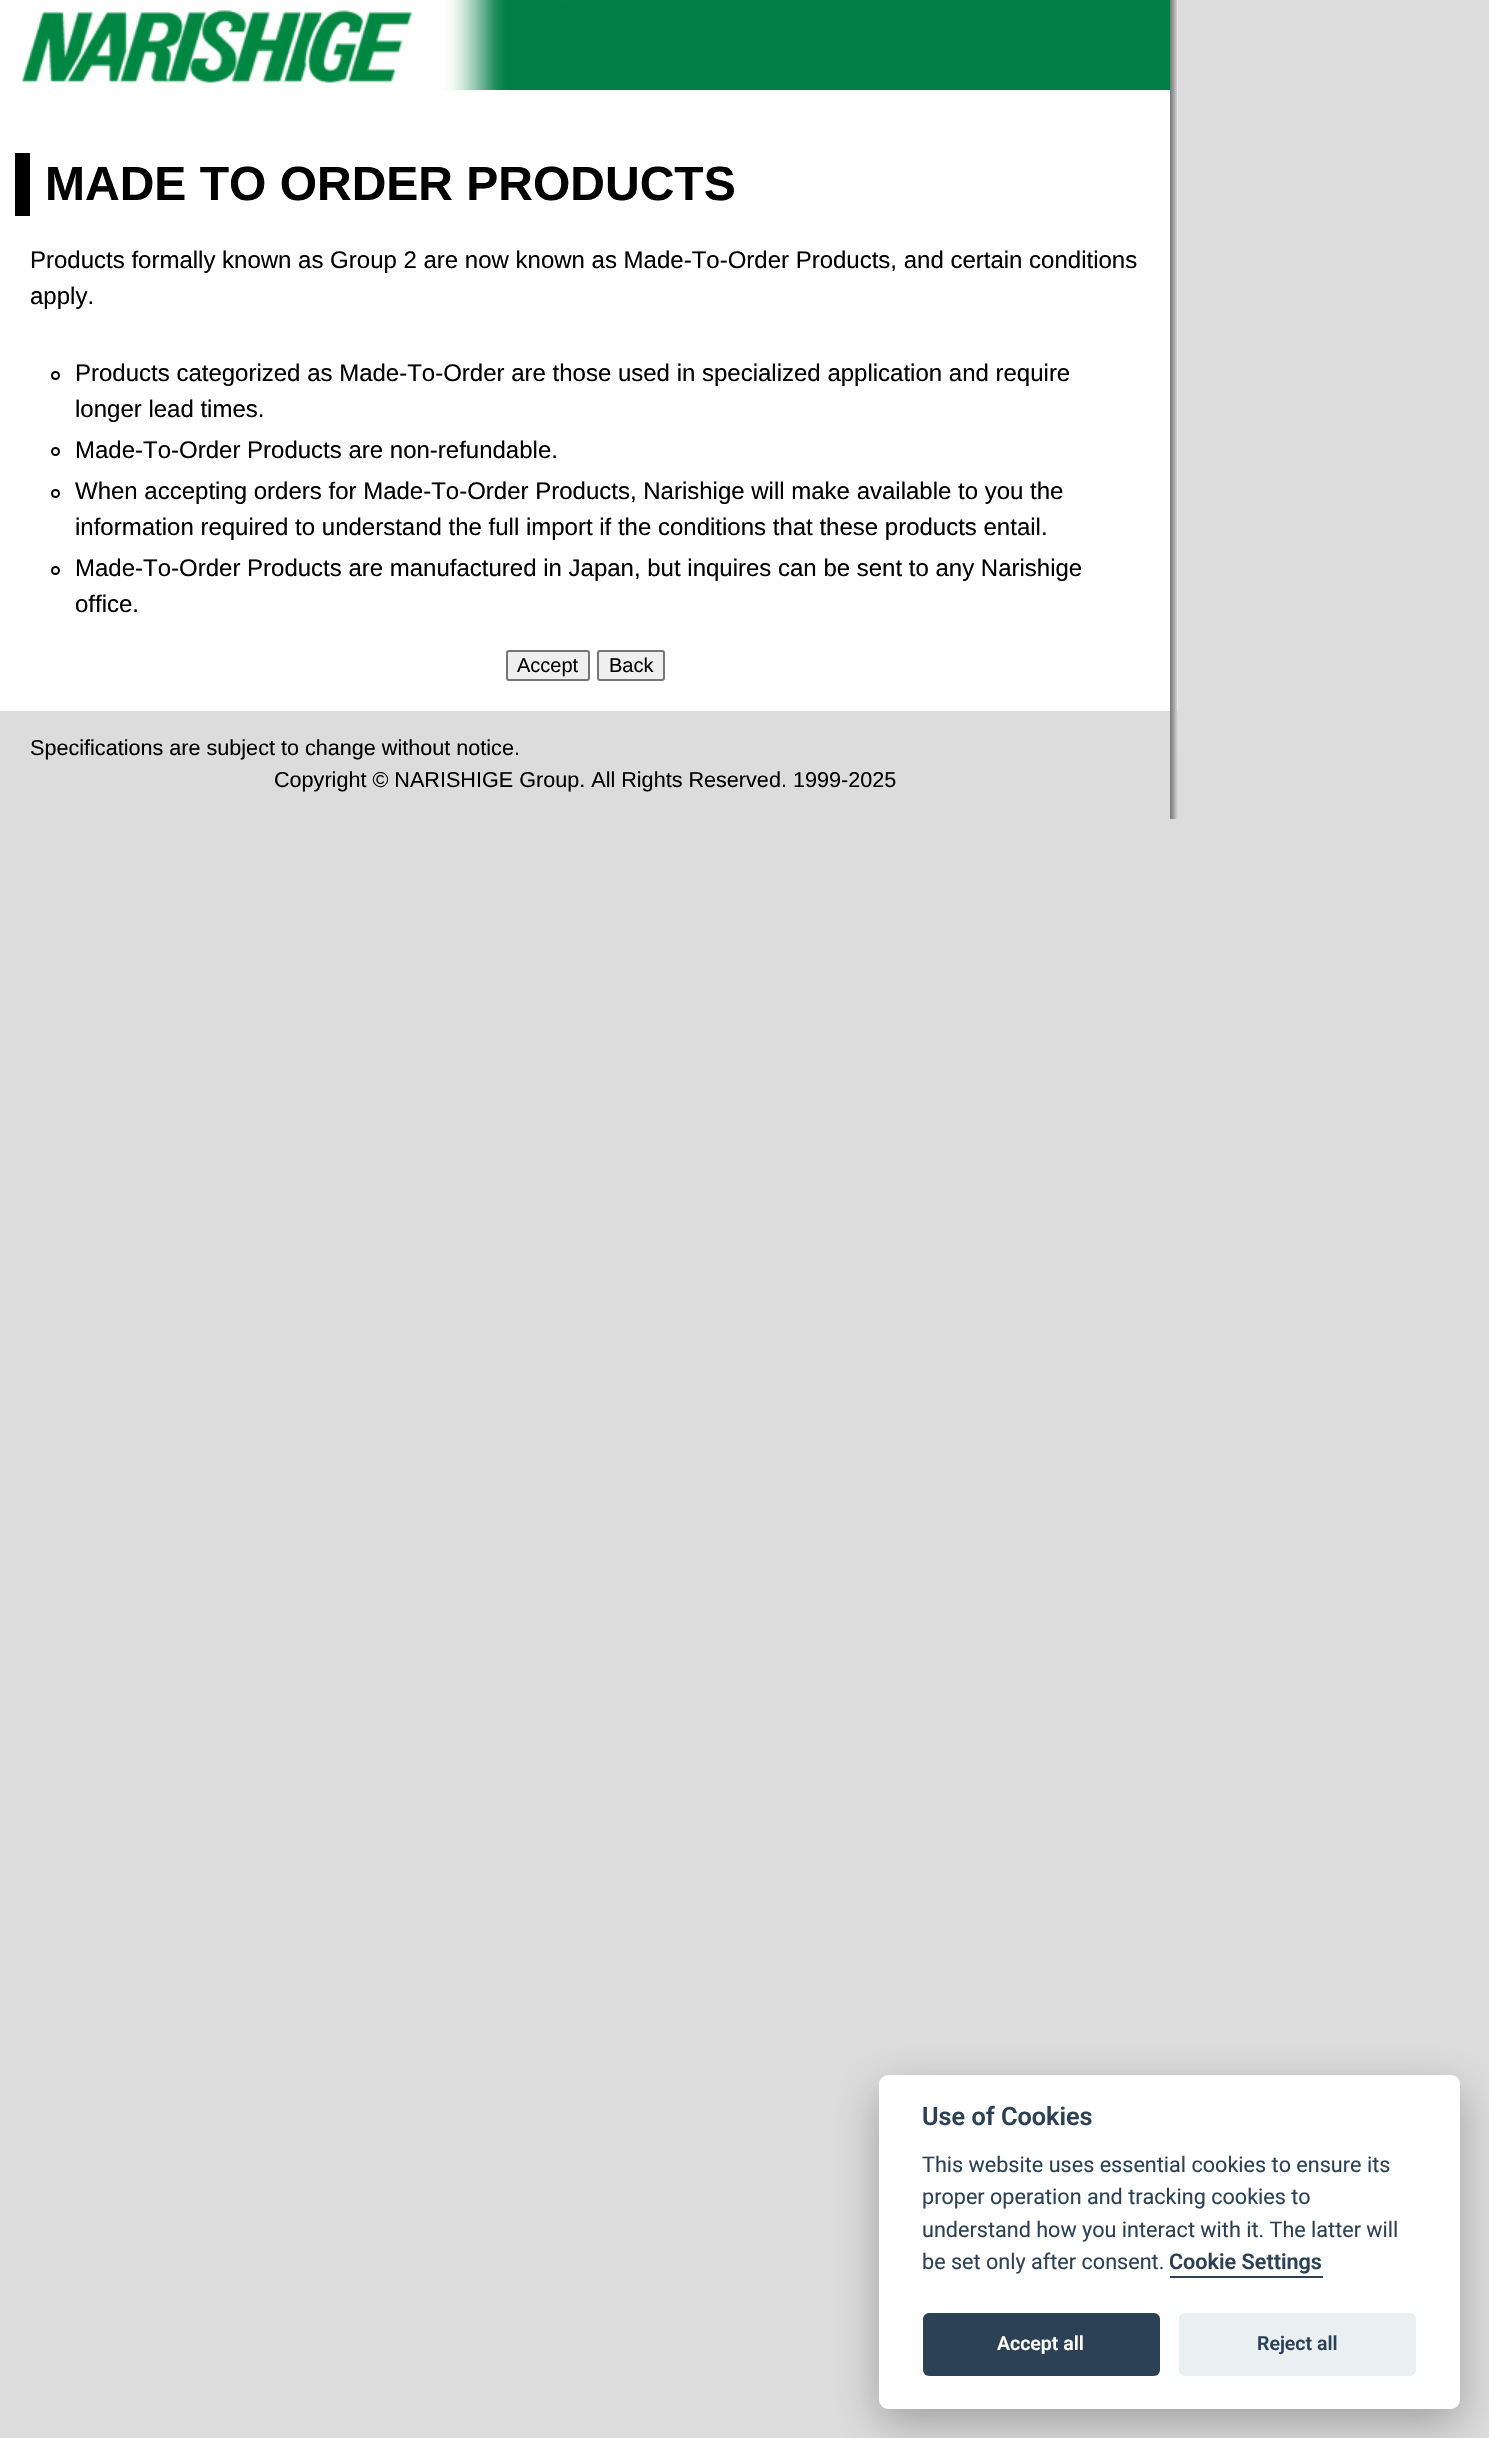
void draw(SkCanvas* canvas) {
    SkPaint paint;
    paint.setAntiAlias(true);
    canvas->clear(0xFFDCDCDC);
    paint.setColor(0xFFFFFFFF);
    canvas->drawRect(SkRect::MakeXYWH(0, 0, 1178, 711), paint);
    canvas->drawImageRect(SkImages::DeferredFromEncodedData(SkData::MakeFromFileName("img1.png")), SkRect::MakeXYWH(1170, 0, 8, 123), SkSamplingOptions());
    canvas->drawImageRect(SkImages::DeferredFromEncodedData(SkData::MakeFromFileName("img2.png")), SkRect::MakeXYWH(22, 0, 1148, 90), SkSamplingOptions());
    canvas->drawImageRect(SkImages::DeferredFromEncodedData(SkData::MakeFromFileName("img3.png")), SkRect::MakeXYWH(1170, 123, 8, 588), SkSamplingOptions());
    paint.setColor(0xFF000000);
    canvas->drawRect(SkRect::MakeXYWH(15, 153, 15, 63), paint);
    SkFont font1(fontMgr->matchFamilyStyle("Liberation Sans", SkFontStyle::Bold()), 48);
    font1.setSubpixel(true);
    canvas->drawString("MADE TO ORDER PRODUCTS", 45, 200, font1, paint);
    SkFont font2(fontMgr->matchFamilyStyle("Liberation Sans", SkFontStyle::Normal()), 24);
    font2.setSubpixel(true);
    canvas->drawString("Products formally known as Group 2 are now known as Made-To-Order Products, and certain conditions", 30, 268, font2, paint);
    canvas->drawString("apply.", 30, 304, font2, paint);
    paint.setStyle(SkPaint::kStroke_Style);
    paint.setStrokeWidth(2);
    canvas->drawCircle(55.5f, 375.5f, 3.5f, paint);
    paint.setStyle(SkPaint::kFill_Style);
    canvas->drawString("Products categorized as Made-To-Order are those used in specialized application and require", 75, 381, font2, paint);
    canvas->drawString("longer lead times.", 75, 417, font2, paint);
    paint.setStyle(SkPaint::kStroke_Style);
    canvas->drawCircle(55.5f, 451.5f, 3.5f, paint);
    paint.setStyle(SkPaint::kFill_Style);
    canvas->drawString("Made-To-Order Products are non-refundable.", 75, 458, font2, paint);
    paint.setStyle(SkPaint::kStroke_Style);
    canvas->drawCircle(55.5f, 493.5f, 3.5f, paint);
    paint.setStyle(SkPaint::kFill_Style);
    canvas->drawString("When accepting orders for Made-To-Order Products, Narishige will make available to you the", 75, 499, font2, paint);
    canvas->drawString("information required to understand the full import if the conditions that these products entail.", 75, 535, font2, paint);
    paint.setStyle(SkPaint::kStroke_Style);
    canvas->drawCircle(55.5f, 570.5f, 3.5f, paint);
    paint.setStyle(SkPaint::kFill_Style);
    canvas->drawString("Made-To-Order Products are manufactured in Japan, but inquires can be sent to any Narishige", 75, 576, font2, paint);
    canvas->drawString("office.", 75, 612, font2, paint);
    paint.setColor(0xFFEFEFEF);
    canvas->drawRoundRect(SkRect::MakeXYWH(507, 651, 82, 29), 2, 2, paint);
    paint.setStyle(SkPaint::kStroke_Style);
    paint.setColor(0xFF767676);
    canvas->drawRoundRect(SkRect::MakeXYWH(507, 651, 82, 29), 2, 2, paint);
    SkFont font3(fontMgr->matchFamilyStyle("Liberation Sans", SkFontStyle::Normal()), 20);
    font3.setSubpixel(true);
    paint.setStyle(SkPaint::kFill_Style);
    paint.setColor(0xFF000000);
    canvas->drawString("Accept", 517, 672, font3, paint);
    paint.setColor(0xFFEFEFEF);
    canvas->drawRoundRect(SkRect::MakeXYWH(598, 651, 66, 29), 2, 2, paint);
    paint.setStyle(SkPaint::kStroke_Style);
    paint.setColor(0xFF767676);
    canvas->drawRoundRect(SkRect::MakeXYWH(598, 651, 66, 29), 2, 2, paint);
    paint.setStyle(SkPaint::kFill_Style);
    paint.setColor(0xFF000000);
    canvas->drawString("Back", 609, 672, font3, paint);
    canvas->drawImageRect(SkImages::DeferredFromEncodedData(SkData::MakeFromFileName("img4.png")), SkRect::MakeXYWH(1170, 711, 8, 108), SkSamplingOptions());
    SkFont font4(fontMgr->matchFamilyStyle("Liberation Sans", SkFontStyle::Normal()), 21.6f);
    font4.setSubpixel(true);
    canvas->drawString("Specifications are subject to change without notice.", 30, 755, font4, paint);
    canvas->drawString("Copyright © NARISHIGE Group. All Rights Reserved. 1999-2025", 274, 787, font4, paint);
    paint.setColor(0x47020203);
    paint.setMaskFilter(SkMaskFilter::MakeBlur(kNormal_SkBlurStyle, 22.5f));
    canvas->drawRoundRect(SkRect::MakeXYWH(879, 2090, 581, 334), 9, 9, paint);
    paint.setMaskFilter(nullptr);
    paint.setColor(0xFFFFFFFF);
    canvas->drawRoundRect(SkRect::MakeXYWH(879, 2075, 581, 334), 9, 9, paint);
    SkFont font5(fontMgr->matchFamilyStyle("Roboto", SkFontStyle(600, SkFontStyle::kNormal_Width, SkFontStyle::kUpright_Slant)), 25.25f);
    font5.setSubpixel(true);
    paint.setColor(0xFF2D4156);
    canvas->drawString("Use of Cookies", 922, 2125, font5, paint);
    SkFont font6(fontMgr->matchFamilyStyle("Roboto", SkFontStyle::Normal()), 21.6f);
    font6.setSubpixel(true);
    canvas->drawString("This website uses essential cookies to ensure its", 922, 2172, font6, paint);
    canvas->drawString("proper operation and tracking cookies to", 922, 2204, font6, paint);
    canvas->drawString("understand how you interact with it. The latter will", 922, 2237, font6, paint);
    canvas->drawString("be set only after consent.", 922, 2269, font6, paint);
    SkFont font7(fontMgr->matchFamilyStyle("Roboto", SkFontStyle(600, SkFontStyle::kNormal_Width, SkFontStyle::kUpright_Slant)), 21.6f);
    font7.setSubpixel(true);
    canvas->drawString("Cookie Settings", 1169, 2269, font7, paint);
    canvas->drawRect(SkRect::MakeXYWH(1170, 2276, 153, 2), paint);
    canvas->drawRoundRect(SkRect::MakeXYWH(923, 2313, 237, 63), 6, 6, paint);
    SkFont font8(fontMgr->matchFamilyStyle("Roboto", SkFontStyle(600, SkFontStyle::kNormal_Width, SkFontStyle::kUpright_Slant)), 19.5f);
    font8.setSubpixel(true);
    paint.setColor(0xFFFFFFFF);
    canvas->drawString("Accept all", 997, 2350, font8, paint);
    paint.setColor(0xFFEAEFF2);
    canvas->drawRoundRect(SkRect::MakeXYWH(1179, 2313, 237, 63), 6, 6, paint);
    paint.setColor(0xFF2D4156);
    canvas->drawString("Reject all", 1257, 2350, font8, paint);
}
